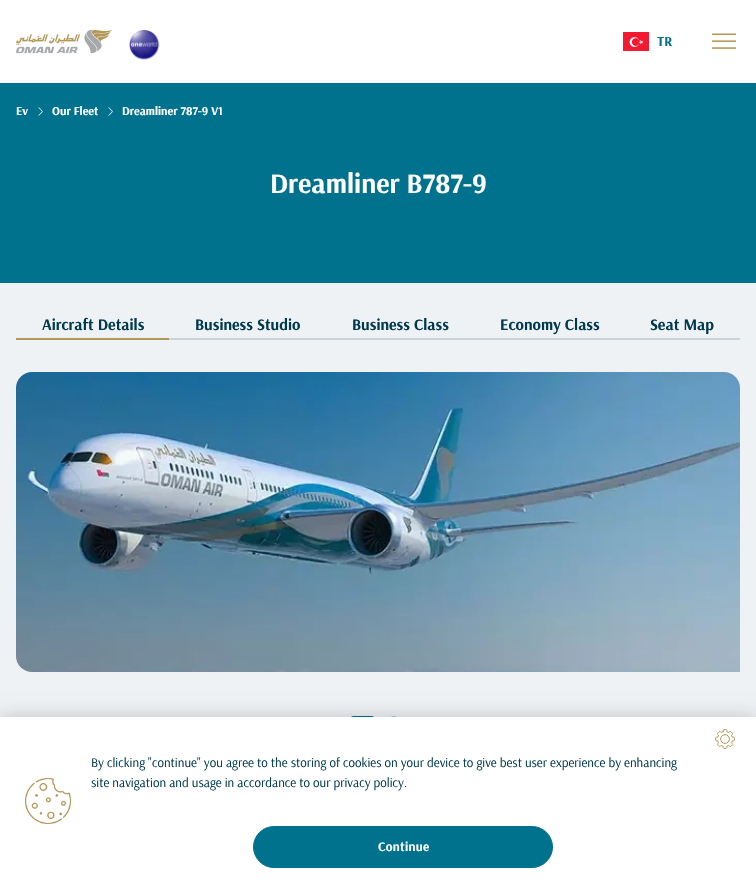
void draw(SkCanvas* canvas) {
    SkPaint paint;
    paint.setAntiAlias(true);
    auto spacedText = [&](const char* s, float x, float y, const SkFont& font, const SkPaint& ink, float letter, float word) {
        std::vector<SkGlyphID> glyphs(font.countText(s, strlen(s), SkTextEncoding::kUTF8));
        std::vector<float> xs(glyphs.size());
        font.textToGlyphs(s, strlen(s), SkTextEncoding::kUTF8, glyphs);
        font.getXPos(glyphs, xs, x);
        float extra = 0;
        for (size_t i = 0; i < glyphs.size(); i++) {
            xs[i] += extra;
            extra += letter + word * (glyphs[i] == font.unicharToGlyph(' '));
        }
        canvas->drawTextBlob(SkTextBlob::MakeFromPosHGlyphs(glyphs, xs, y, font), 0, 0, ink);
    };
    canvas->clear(0xFFFFFFFF);
    canvas->drawImageRect(SkImages::DeferredFromEncodedData(SkData::MakeFromFileName("img1.png")), SkRect::MakeXYWH(16, 29, 96, 25), SkSamplingOptions());
    canvas->drawImageRect(SkImages::DeferredFromEncodedData(SkData::MakeFromFileName("img2.png")), SkRect::MakeXYWH(128, 29, 32, 31), SkSamplingOptions());
    canvas->drawImageRect(SkImages::DeferredFromEncodedData(SkData::MakeFromFileName("img3.png")), SkRect::MakeXYWH(623, 32, 26, 19), SkSamplingOptions());
    SkFont font1(fontMgr->matchFamilyStyle("Arsenal", SkFontStyle::Bold()), 14);
    font1.setSubpixel(true);
    paint.setColor(0xFF00728E);
    canvas->drawString("TR", 657, 46, font1, paint);
    canvas->drawImageRect(SkImages::DeferredFromEncodedData(SkData::MakeFromFileName("img4.png")), SkRect::MakeXYWH(712, 33, 24, 16), SkSamplingOptions());
    paint.setColor(0xFFEFF2F5);
    canvas->drawRect(SkRect::MakeXYWH(0, 283, 756, 434), paint);
    paint.setColor(0xFF00728E);
    canvas->drawRect(SkRect::MakeXYWH(0, 83, 756, 200), paint);
    SkFont font2(fontMgr->matchFamilyStyle("Arsenal", SkFontStyle::Bold()), 12);
    font2.setSubpixel(true);
    paint.setColor(0xFFFFFFFF);
    canvas->drawString("Ev", 16, 115, font2, paint);
    canvas->drawImageRect(SkImages::DeferredFromEncodedData(SkData::MakeFromFileName("img5.png")), SkRect::MakeXYWH(38, 107, 5, 9), SkSamplingOptions());
    canvas->drawString("Our Fleet", 52, 115, font2, paint);
    canvas->drawImageRect(SkImages::DeferredFromEncodedData(SkData::MakeFromFileName("img5.png")), SkRect::MakeXYWH(108, 107, 5, 9), SkSamplingOptions());
    canvas->drawString("Dreamliner 787-9 V1", 122, 115, font2, paint);
    SkFont font3(fontMgr->matchFamilyStyle("Arsenal", SkFontStyle::Bold()), 28);
    font3.setSubpixel(true);
    canvas->drawString("Dreamliner B787-9", 270, 193, font3, paint);
    paint.setColor(0xFFB39759);
    canvas->drawRect(SkRect::MakeXYWH(16, 338, 153, 2), paint);
    SkFont font4(fontMgr->matchFamilyStyle("Arsenal", SkFontStyle::Bold()), 16);
    font4.setSubpixel(true);
    paint.setColor(0xFF003A4E);
    canvas->drawString("Aircraft Details", 42, 330, font4, paint);
    paint.setColor(0xFFCAD5DA);
    canvas->drawRect(SkRect::MakeXYWH(169, 338, 571, 2), paint);
    paint.setColor(0xFF003A4E);
    canvas->drawString("Business Studio", 195, 330, font4, paint);
    canvas->drawString("Business Class", 352, 330, font4, paint);
    canvas->drawString("Economy Class", 500, 330, font4, paint);
    canvas->drawString("Seat Map", 650, 330, font4, paint);
    canvas->drawImageRect(SkImages::DeferredFromEncodedData(SkData::MakeFromFileName("img6.png")), SkRect::MakeXYWH(16, 372, 724, 300), SkSamplingOptions());
    paint.setColor(0xFF00728E);
    canvas->drawRoundRect(SkRect::MakeXYWH(350, 716, 25, 8), 4, 4, paint);
    paint.setColor(0xFFA7CCD6);
    canvas->drawCircle(394, 720, 4, paint);
    paint.setColor(0x33000000);
    paint.setMaskFilter(SkMaskFilter::MakeBlur(kNormal_SkBlurStyle, 9));
    canvas->drawRect(SkRect::MakeXYWH(0, 717, 756, 167), paint);
    paint.setMaskFilter(nullptr);
    paint.setColor(0xFFFFFFFF);
    canvas->drawRect(SkRect::MakeXYWH(0, 717, 756, 167), paint);
    SkFont font5(fontMgr->matchFamilyStyle("Arsenal", SkFontStyle::Normal()), 13);
    font5.setSubpixel(true);
    paint.setColor(0xFF003A4E);
    canvas->drawString("By clicking \"continue\" you agree to the storing of cookies on your device to give best user experience by enhancing", 91, 767, font5, paint);
    canvas->drawString("site navigation and usage in accordance to our privacy policy.", 91, 787, font5, paint);
    canvas->drawImageRect(SkImages::DeferredFromEncodedData(SkData::MakeFromFileName("img7.png")), SkRect::MakeXYWH(25, 778, 46, 46), SkSamplingOptions());
    canvas->drawImageRect(SkImages::DeferredFromEncodedData(SkData::MakeFromFileName("img8.png")), SkRect::MakeXYWH(715, 729, 20, 20), SkSamplingOptions());
    paint.setColor(0xFF00728E);
    canvas->drawRoundRect(SkRect::MakeXYWH(253.5f, 826.5f, 299, 41), 20.5f, 20.5f, paint);
    paint.setStyle(SkPaint::kStroke_Style);
    paint.setStrokeWidth(1);
    canvas->drawRoundRect(SkRect::MakeXYWH(253.5f, 826.5f, 299, 41), 20.5f, 20.5f, paint);
    SkFont font6(fontMgr->matchFamilyStyle("Arsenal", SkFontStyle::Bold()), 13);
    font6.setSubpixel(true);
    paint.setStyle(SkPaint::kFill_Style);
    paint.setColor(0xFFFFFFFF);
    spacedText("Continue", 378, 851, font6, paint, 0.25f, 0);
}
